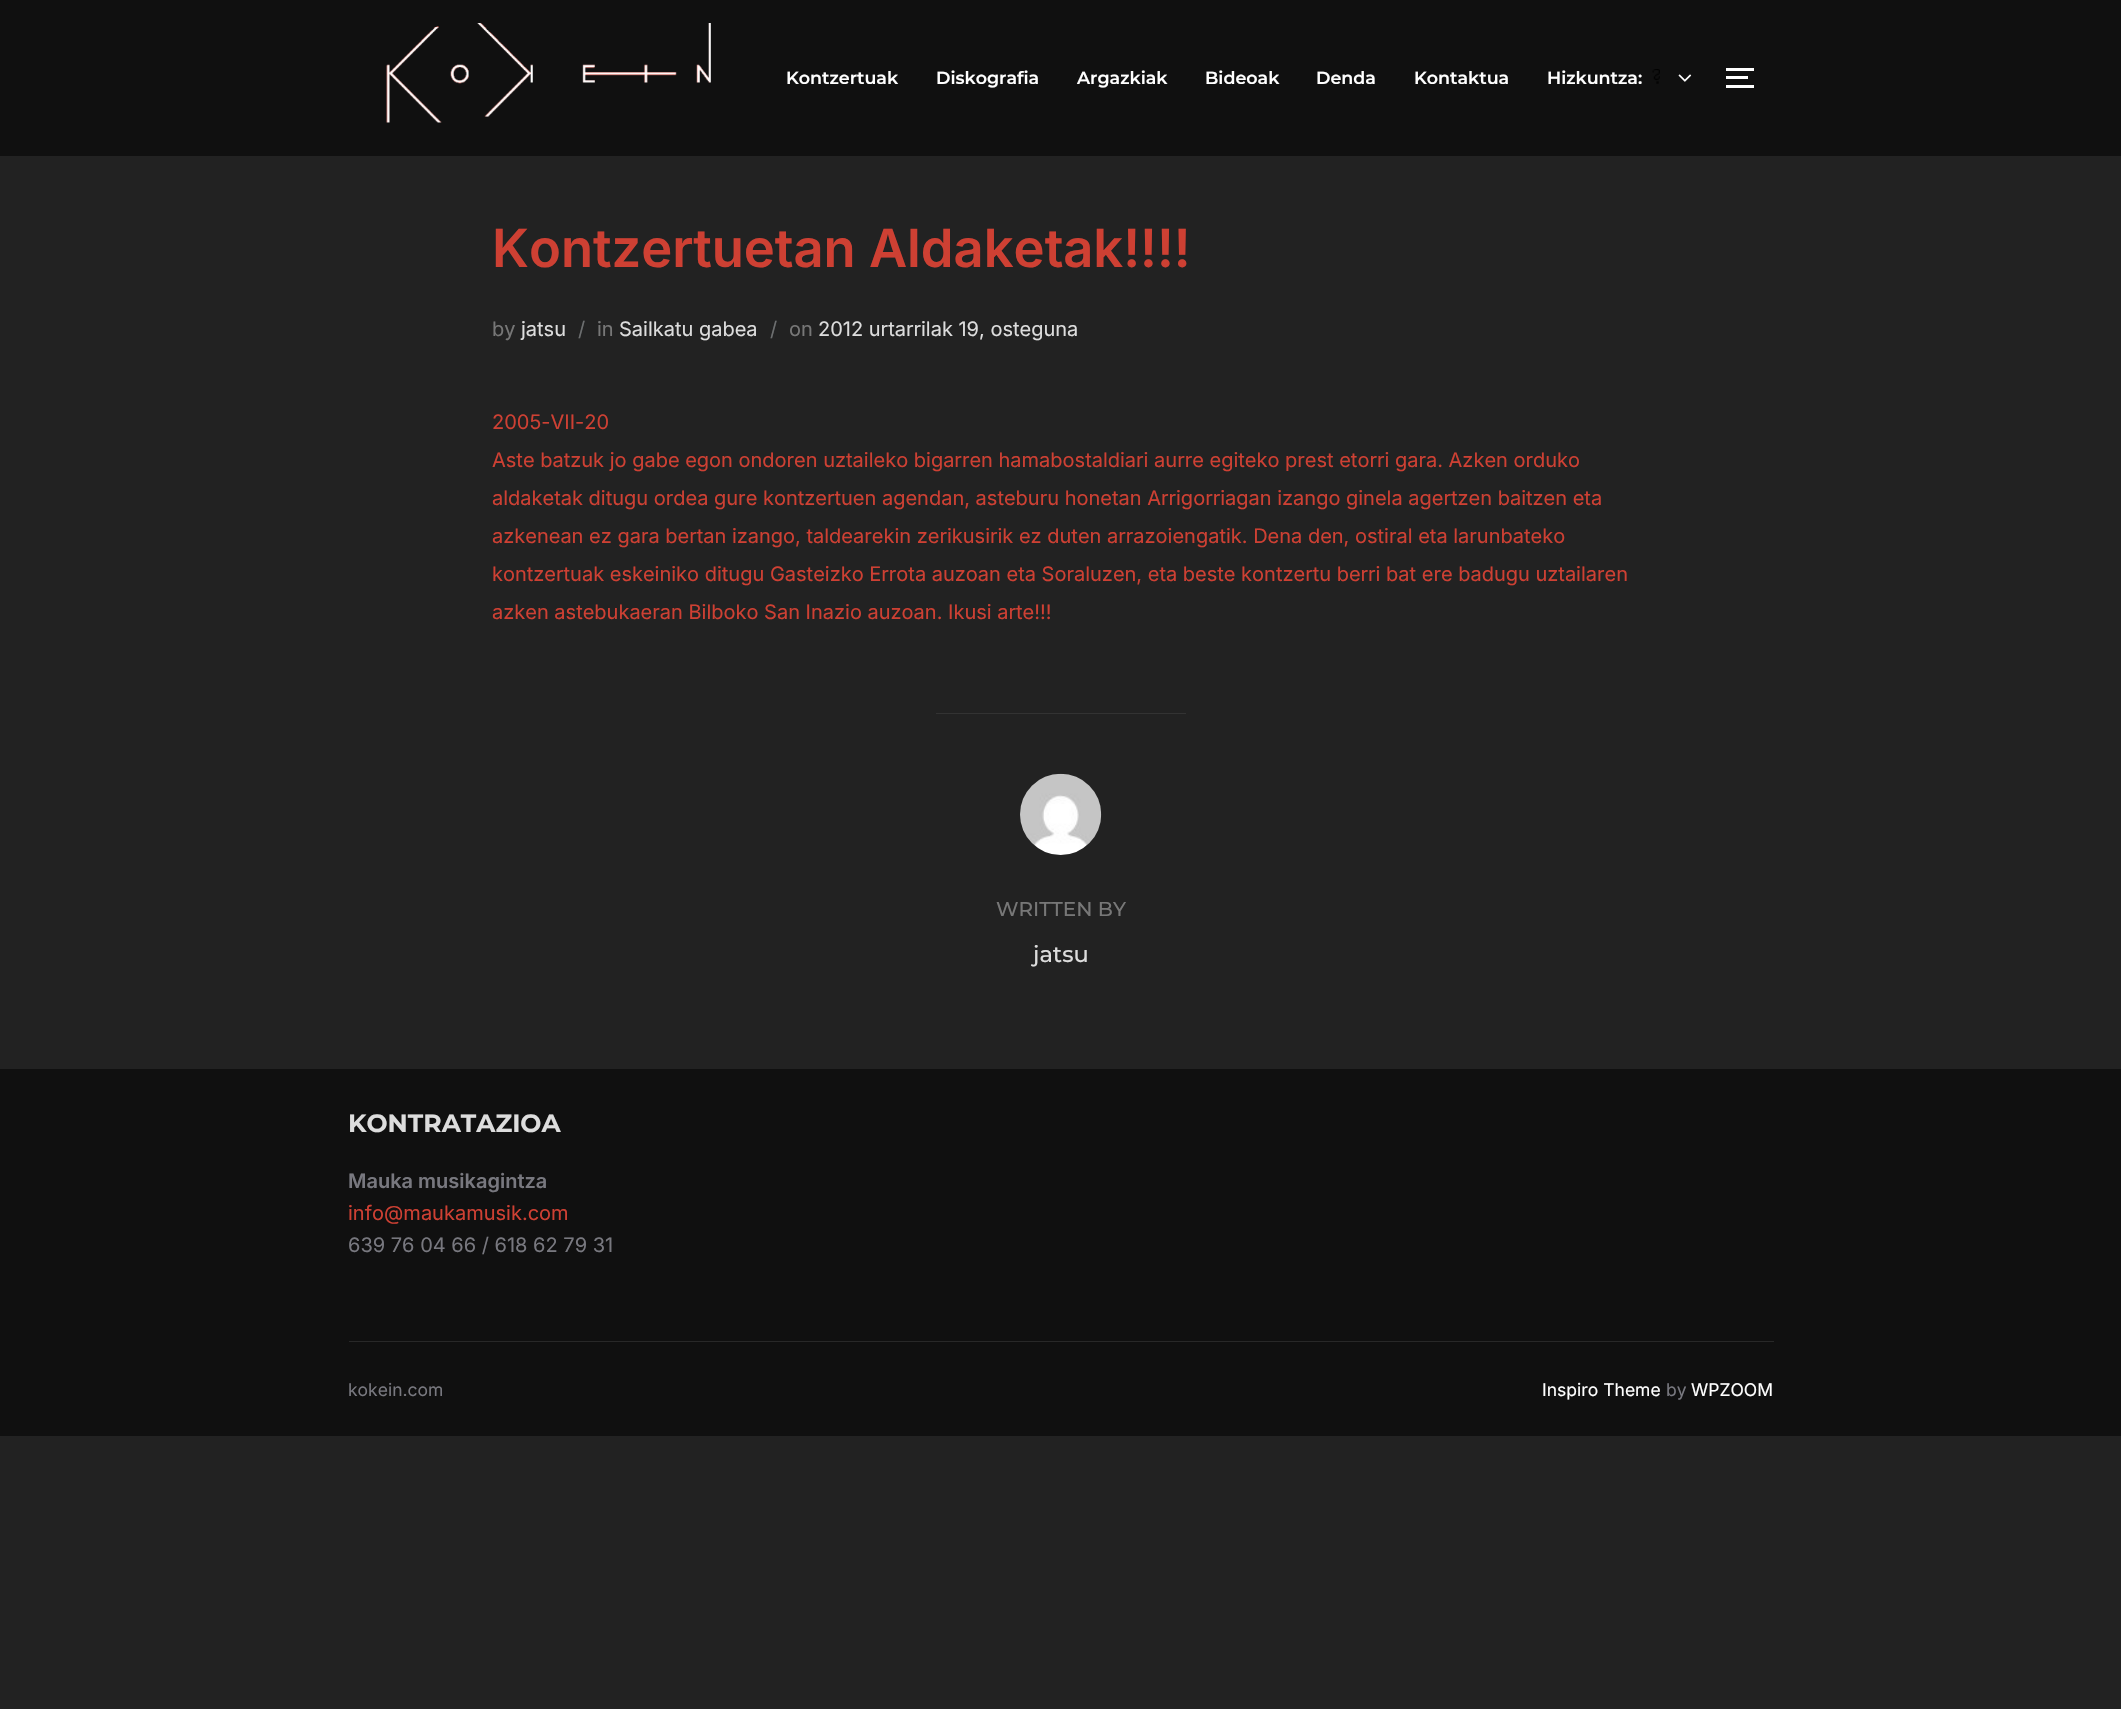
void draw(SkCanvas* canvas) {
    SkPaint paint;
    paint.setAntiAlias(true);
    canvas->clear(0xFF222222);
    paint.setColor(0xFF101010);
    canvas->drawRect(SkRect::MakeXYWH(0, 0, 2121, 156), paint);
    canvas->drawImageRect(SkImages::DeferredFromEncodedData(SkData::MakeFromFileName("img1.png")), SkRect::MakeXYWH(386, 23, 325, 100), SkSamplingOptions());
    SkFont font1(fontMgr->matchFamilyStyle("Montserrat", SkFontStyle(600, SkFontStyle::kNormal_Width, SkFontStyle::kUpright_Slant)), 17.5f);
    font1.setSubpixel(true);
    paint.setColor(0xFFFFFFFF);
    canvas->drawString("Kontzertuak", 786, 84, font1, paint);
    canvas->drawString("Diskografia", 936, 84, font1, paint);
    canvas->drawString("Argazkiak", 1077, 84, font1, paint);
    canvas->drawString("Bideoak", 1205, 84, font1, paint);
    canvas->drawString("Denda", 1316, 84, font1, paint);
    canvas->drawString("Kontaktua", 1414, 84, font1, paint);
    canvas->drawString("Hizkuntza:", 1547, 84, font1, paint);
    canvas->drawImageRect(SkImages::DeferredFromEncodedData(SkData::MakeFromFileName("img2.png")), SkRect::MakeXYWH(1652, 69, 8, 15), SkSamplingOptions());
    canvas->drawImageRect(SkImages::DeferredFromEncodedData(SkData::MakeFromFileName("img3.png")), SkRect::MakeXYWH(1678, 74, 14, 8), SkSamplingOptions());
    canvas->drawRect(SkRect::MakeXYWH(1726, 68, 28, 3), paint);
    canvas->drawRect(SkRect::MakeXYWH(1726, 76, 22, 3), paint);
    canvas->drawRect(SkRect::MakeXYWH(1726, 85, 28, 3), paint);
    SkFont font2(fontMgr->matchFamilyStyle("Inter", SkFontStyle(600, SkFontStyle::kNormal_Width, SkFontStyle::kUpright_Slant)), 52.5f);
    font2.setSubpixel(true);
    paint.setColor(0xFFCE4033);
    canvas->drawString("Kontzertuetan Aldaketak!!!!", 492, 267, font2, paint);
    SkFont font3(fontMgr->matchFamilyStyle("Inter", SkFontStyle::Normal()), 20);
    font3.setSubpixel(true);
    paint.setColor(0xFF777777);
    canvas->drawString("by", 492, 336, font3, paint);
    paint.setColor(0xFFDDDDDD);
    canvas->drawString("jatsu", 521, 336, font3, paint);
    paint.setColor(0xFF6C6E6F);
    canvas->drawString("/", 578, 336, font3, paint);
    paint.setColor(0xFF777777);
    canvas->drawString("in", 597, 336, font3, paint);
    paint.setColor(0xFFDDDDDD);
    canvas->drawString("Sailkatu gabea", 619, 336, font3, paint);
    paint.setColor(0xFF6C6E6F);
    canvas->drawString("/", 770, 336, font3, paint);
    paint.setColor(0xFF777777);
    canvas->drawString("on", 789, 336, font3, paint);
    paint.setColor(0xFFDDDDDD);
    canvas->drawString("2012 urtarrilak 19, osteguna", 818, 336, font3, paint);
    paint.setColor(0xFFCE4033);
    canvas->drawString("2005-VII-20", 492, 429, font3, paint);
    canvas->drawString("Aste batzuk jo gabe egon ondoren uztaileko bigarren hamabostaldiari aurre egiteko prest etorri gara. Azken orduko", 492, 467, font3, paint);
    canvas->drawString("aldaketak ditugu ordea gure kontzertuen agendan, asteburu honetan Arrigorriagan izango ginela agertzen baitzen eta", 492, 505, font3, paint);
    canvas->drawString("azkenean ez gara bertan izango, taldearekin zerikusirik ez duten arrazoiengatik. Dena den, ostiral eta larunbateko", 492, 543, font3, paint);
    canvas->drawString("kontzertuak eskeiniko ditugu Gasteizko Errota auzoan eta Soraluzen, eta beste kontzertu berri bat ere badugu uztailaren", 492, 581, font3, paint);
    canvas->drawString("azken astebukaeran Bilboko San Inazio auzoan. Ikusi arte!!!", 492, 619, font3, paint);
    paint.setColor(0xFF333333);
    canvas->drawRect(SkRect::MakeXYWH(936, 713, 250, 1), paint);
    canvas->drawImageRect(SkImages::DeferredFromEncodedData(SkData::MakeFromFileName("img4.png")), SkRect::MakeXYWH(1020, 773, 82, 82), SkSamplingOptions());
    SkFont font4(fontMgr->matchFamilyStyle("Montserrat", SkFontStyle(500, SkFontStyle::kNormal_Width, SkFontStyle::kUpright_Slant)), 20);
    font4.setSubpixel(true);
    paint.setColor(0xFF777777);
    canvas->drawString("WRITTEN BY", 996, 916, font4, paint);
    SkFont font5(fontMgr->matchFamilyStyle("Montserrat", SkFontStyle(500, SkFontStyle::kNormal_Width, SkFontStyle::kUpright_Slant)), 22.5f);
    font5.setSubpixel(true);
    paint.setColor(0xFFDDDDDD);
    canvas->drawString("jatsu", 1033, 962, font5, paint);
    paint.setColor(0xFF101010);
    canvas->drawRect(SkRect::MakeXYWH(0, 1069, 2121, 367), paint);
    SkFont font6(fontMgr->matchFamilyStyle("Montserrat", SkFontStyle::Bold()), 25);
    font6.setSubpixel(true);
    paint.setColor(0xFFDDDDDD);
    canvas->drawString("KONTRATAZIOA", 348, 1132, font6, paint);
    SkFont font7(fontMgr->matchFamilyStyle("Inter", SkFontStyle(600, SkFontStyle::kNormal_Width, SkFontStyle::kUpright_Slant)), 20);
    font7.setSubpixel(true);
    paint.setColor(0xFF78787F);
    canvas->drawString("Mauka musikagintza", 348, 1188, font7, paint);
    paint.setColor(0xFFCE4033);
    canvas->drawString("info@maukamusik.com", 348, 1220, font3, paint);
    paint.setColor(0xFF78787F);
    canvas->drawString("639 76 04 66 / 618 62 79 31", 348, 1252, font3, paint);
    paint.setColor(0xFF282828);
    canvas->drawRect(SkRect::MakeXYWH(349, 1341, 1425, 1), paint);
    SkFont font8(fontMgr->matchFamilyStyle("Inter", SkFontStyle::Normal()), 17.5f);
    font8.setSubpixel(true);
    paint.setColor(0xFF78787F);
    canvas->drawString("kokein.com", 348, 1396, font8, paint);
    paint.setColor(0xFFFFFFFF);
    canvas->drawString("Inspiro Theme", 1542, 1396, font8, paint);
    paint.setColor(0xFF78787F);
    canvas->drawString("by", 1666, 1396, font8, paint);
    paint.setColor(0xFFFFFFFF);
    canvas->drawString("WPZOOM", 1691, 1396, font8, paint);
}
